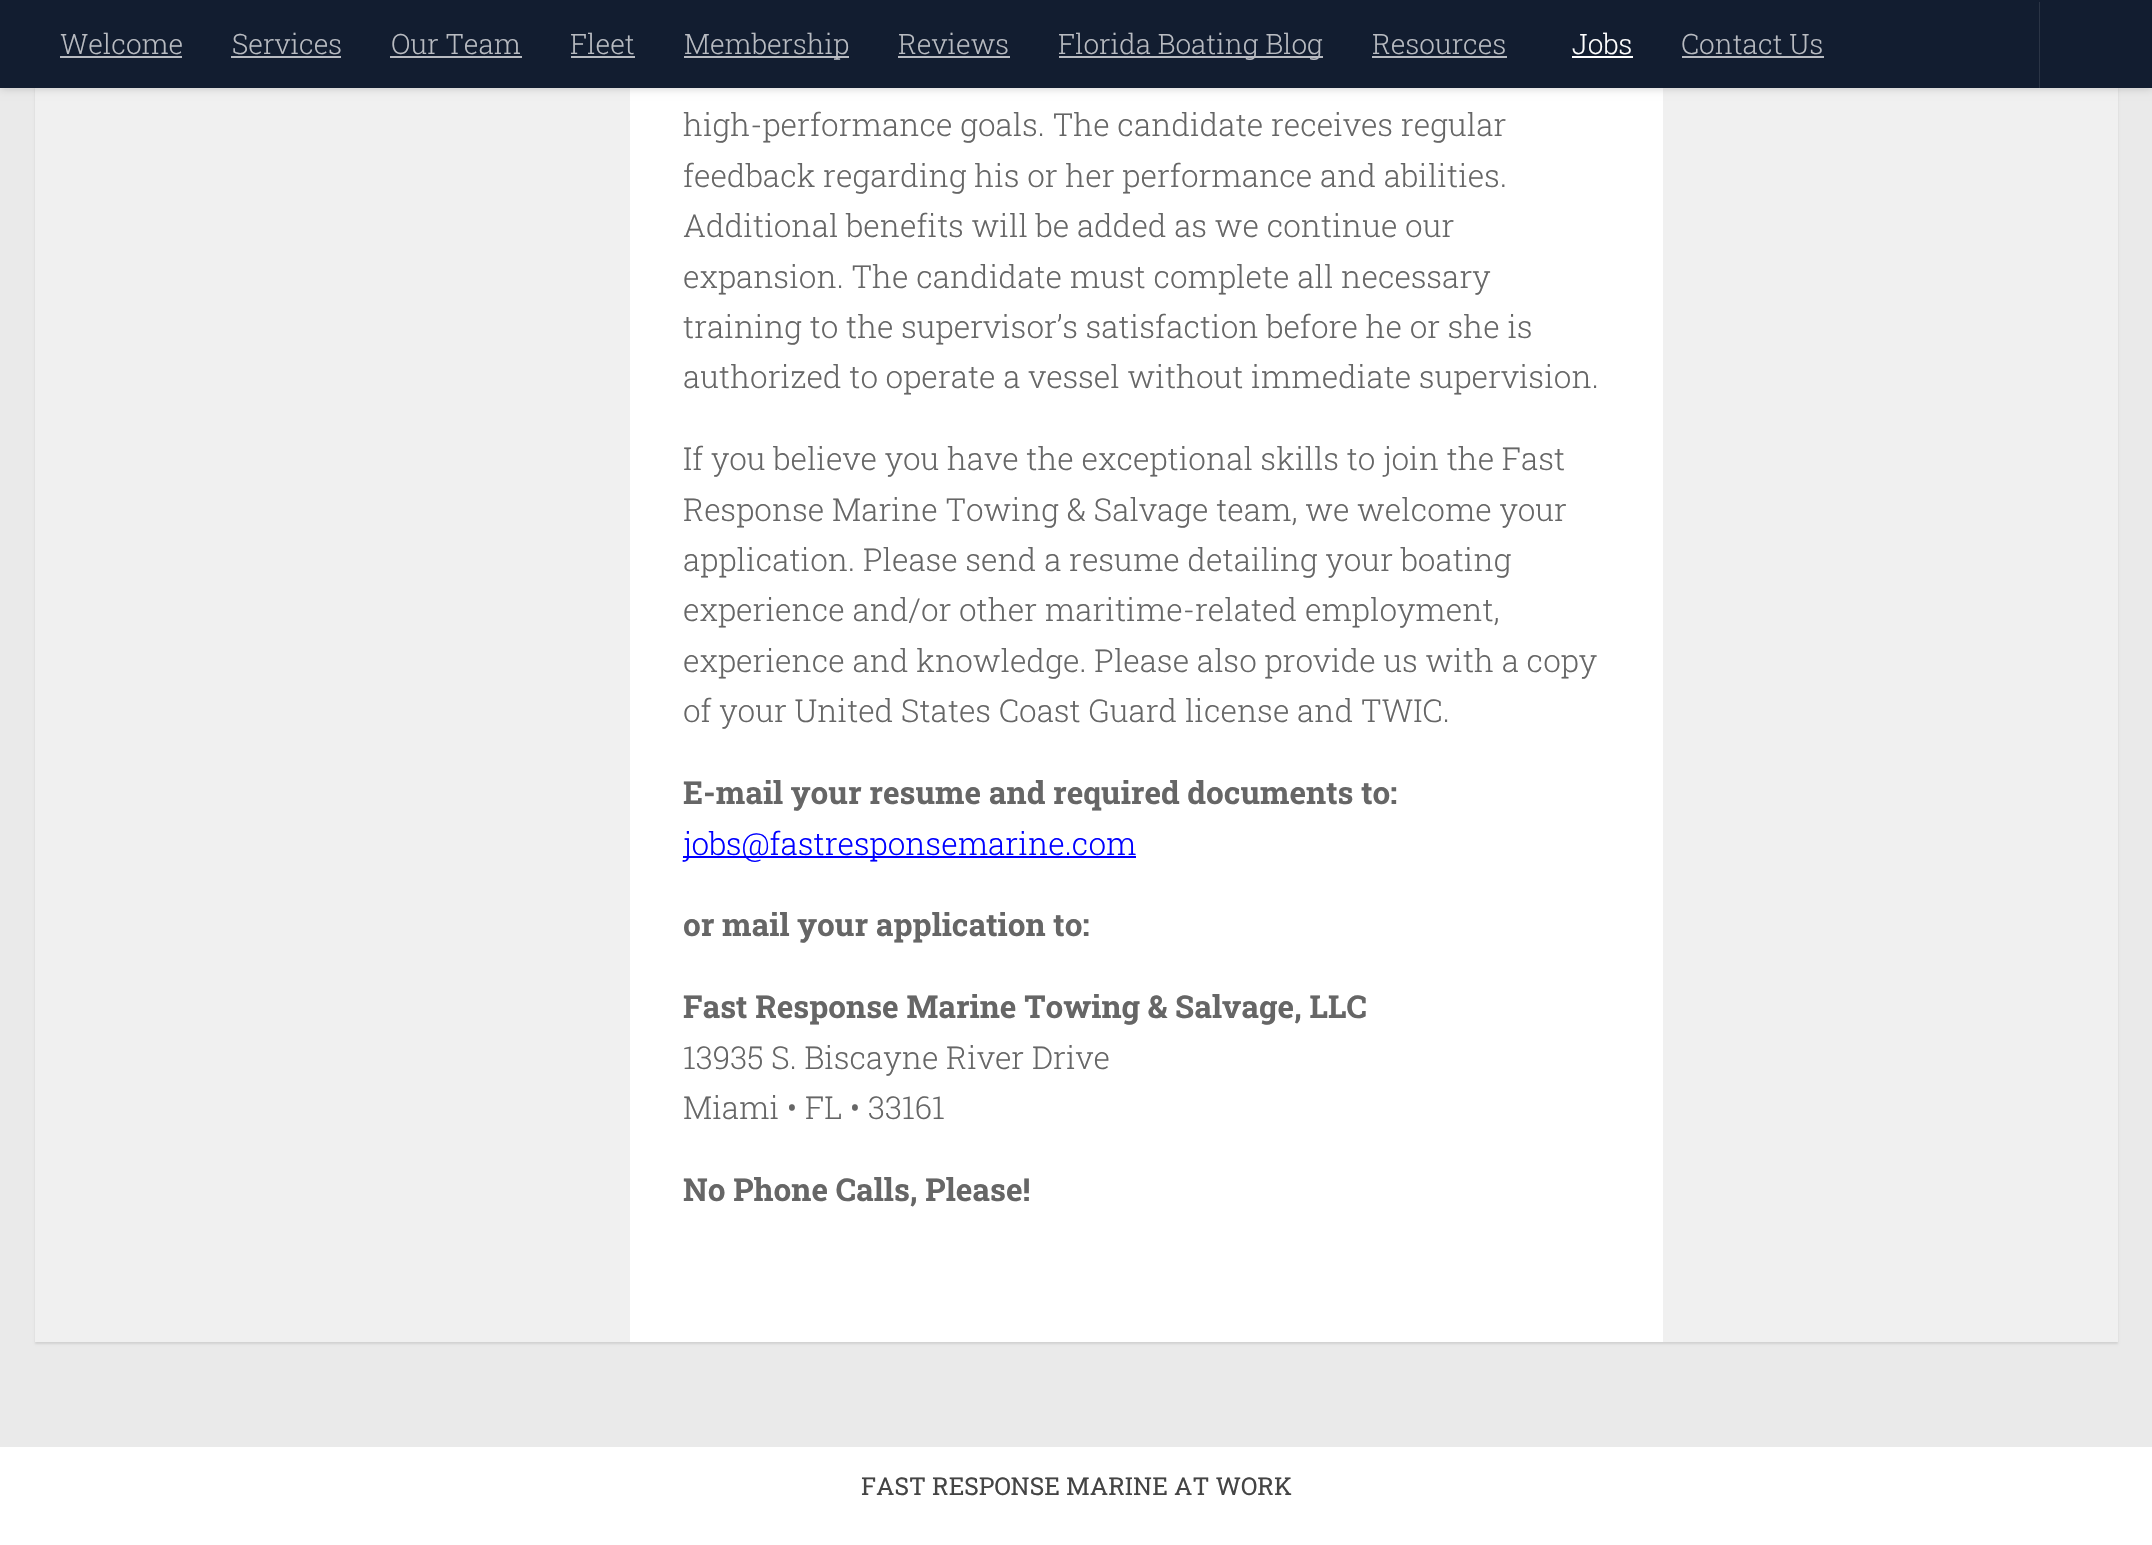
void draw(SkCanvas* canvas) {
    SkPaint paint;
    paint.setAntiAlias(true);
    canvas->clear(0xFFEAEAEA);
    paint.setColor(0x1A000000);
    paint.setMaskFilter(SkMaskFilter::MakeBlur(kNormal_SkBlurStyle, 1));
    canvas->drawRect(SkRect::MakeXYWH(35, -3, 2083, 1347), paint);
    paint.setMaskFilter(nullptr);
    paint.setColor(0xFFFFFFFF);
    canvas->drawRect(SkRect::MakeXYWH(630, 88, 1033, 1254), paint);
    paint.setColor(0xFFF0F0F0);
    canvas->drawRect(SkRect::MakeXYWH(35, 88, 595, 1254), paint);
    canvas->drawRect(SkRect::MakeXYWH(1663, 88, 455, 1254), paint);
    paint.setColor(0x26FFFFFF);
    canvas->drawPath(SkPathBuilder().moveTo(0, 88).lineTo(0, 89).lineTo(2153, 89).lineTo(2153, 2).lineTo(2152, 2).lineTo(2152, 88).close().detach(), paint);
    paint.setColor(0x33000000);
    paint.setMaskFilter(SkMaskFilter::MakeBlur(kNormal_SkBlurStyle, 4.5f));
    canvas->drawRect(SkRect::MakeXYWH(0, 0, 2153, 88), paint);
    paint.setMaskFilter(nullptr);
    paint.setColor(0xFF121D30);
    canvas->drawRect(SkRect::MakeXYWH(0, 0, 2152, 88), paint);
    SkFont font1(fontMgr->matchFamilyStyle("Roboto Slab", SkFontStyle(300, SkFontStyle::kNormal_Width, SkFontStyle::kUpright_Slant)), 28);
    font1.setSubpixel(true);
    paint.setColor(0xFFB8BBC1);
    canvas->drawString("Welcome", 60, 54, font1, paint);
    canvas->drawRect(SkRect::MakeXYWH(60, 56, 122, 2), paint);
    canvas->drawString("Services", 232, 54, font1, paint);
    canvas->drawRect(SkRect::MakeXYWH(231, 56, 110, 2), paint);
    canvas->drawString("Our Team", 391, 54, font1, paint);
    canvas->drawRect(SkRect::MakeXYWH(390, 56, 132, 2), paint);
    canvas->drawString("Fleet", 570, 54, font1, paint);
    canvas->drawRect(SkRect::MakeXYWH(571, 56, 64, 2), paint);
    canvas->drawRect(SkRect::MakeXYWH(684, 56, 165, 2), paint);
    canvas->drawString("Membership", 684, 54, font1, paint);
    canvas->drawString("Reviews", 898, 54, font1, paint);
    canvas->drawRect(SkRect::MakeXYWH(898, 56, 112, 2), paint);
    canvas->drawRect(SkRect::MakeXYWH(1059, 56, 264, 2), paint);
    canvas->drawString("Florida Boating Blog", 1058, 54, font1, paint);
    canvas->drawString("Resources", 1372, 54, font1, paint);
    canvas->drawRect(SkRect::MakeXYWH(1372, 56, 135, 2), paint);
    paint.setColor(0xFFFFFFFF);
    canvas->drawString("Jobs", 1572, 54, font1, paint);
    canvas->drawRect(SkRect::MakeXYWH(1572, 56, 61, 2), paint);
    paint.setColor(0xFFB8BBC1);
    canvas->drawString("Contact Us", 1681, 54, font1, paint);
    canvas->drawRect(SkRect::MakeXYWH(1682, 56, 142, 2), paint);
    paint.setColor(0xFF2A3445);
    canvas->drawRect(SkRect::MakeXYWH(2039, 2, 1, 86), paint);
    SkFont font2(fontMgr->matchFamilyStyle("Roboto Slab", SkFontStyle(300, SkFontStyle::kNormal_Width, SkFontStyle::kUpright_Slant)), 31.5f);
    font2.setSubpixel(true);
    paint.setColor(0xFF666666);
    canvas->drawString("high-performance goals. The candidate receives regular", 683, 136, font2, paint);
    canvas->drawString("feedback regarding his or her performance and abilities.", 683, 187, font2, paint);
    canvas->drawString("Additional benefits will be added as we continue our", 683, 237, font2, paint);
    canvas->drawString("expansion. The candidate must complete all necessary", 683, 288, font2, paint);
    canvas->drawString("training to the supervisor’s satisfaction before he or she is", 683, 338, font2, paint);
    canvas->drawString("authorized to operate a vessel without immediate supervision.", 683, 388, font2, paint);
    canvas->drawString("If you believe you have the exceptional skills to join the Fast", 683, 470, font2, paint);
    canvas->drawString("Response Marine Towing & Salvage team, we welcome your", 683, 521, font2, paint);
    canvas->drawString("application. Please send a resume detailing your boating", 683, 571, font2, paint);
    canvas->drawString("experience and/or other maritime-related employment,", 683, 621, font2, paint);
    canvas->drawString("experience and knowledge. Please also provide us with a copy", 683, 672, font2, paint);
    canvas->drawString("of your United States Coast Guard license and TWIC.", 683, 722, font2, paint);
    SkFont font3(fontMgr->matchFamilyStyle("Roboto Slab", SkFontStyle::Bold()), 31.5f);
    font3.setSubpixel(true);
    canvas->drawString("E-mail your resume and required documents to:", 683, 804, font3, paint);
    paint.setColor(0xFF0000FF);
    canvas->drawRect(SkRect::MakeXYWH(683, 856, 453, 2), paint);
    canvas->drawString("jobs@fastresponsemarine.com", 683, 855, font2, paint);
    paint.setColor(0xFF666666);
    canvas->drawString("or mail your application to:", 683, 936, font3, paint);
    canvas->drawString("Fast Response Marine Towing & Salvage, LLC", 683, 1018, font3, paint);
    canvas->drawString("13935 S. Biscayne River Drive", 683, 1069, font2, paint);
    canvas->drawString("Miami • FL • 33161", 683, 1119, font2, paint);
    canvas->drawString("No Phone Calls, Please!", 683, 1201, font3, paint);
    paint.setColor(0xFFFFFFFF);
    canvas->drawRect(SkRect::MakeXYWH(0, 1447, 2152, 98), paint);
    SkFont font4(fontMgr->matchFamilyStyle("Roboto Slab", SkFontStyle::Normal()), 24.6f);
    font4.setSubpixel(true);
    paint.setColor(0xFF444444);
    canvas->drawString("FAST RESPONSE MARINE AT WORK", 861, 1495, font4, paint);
}
